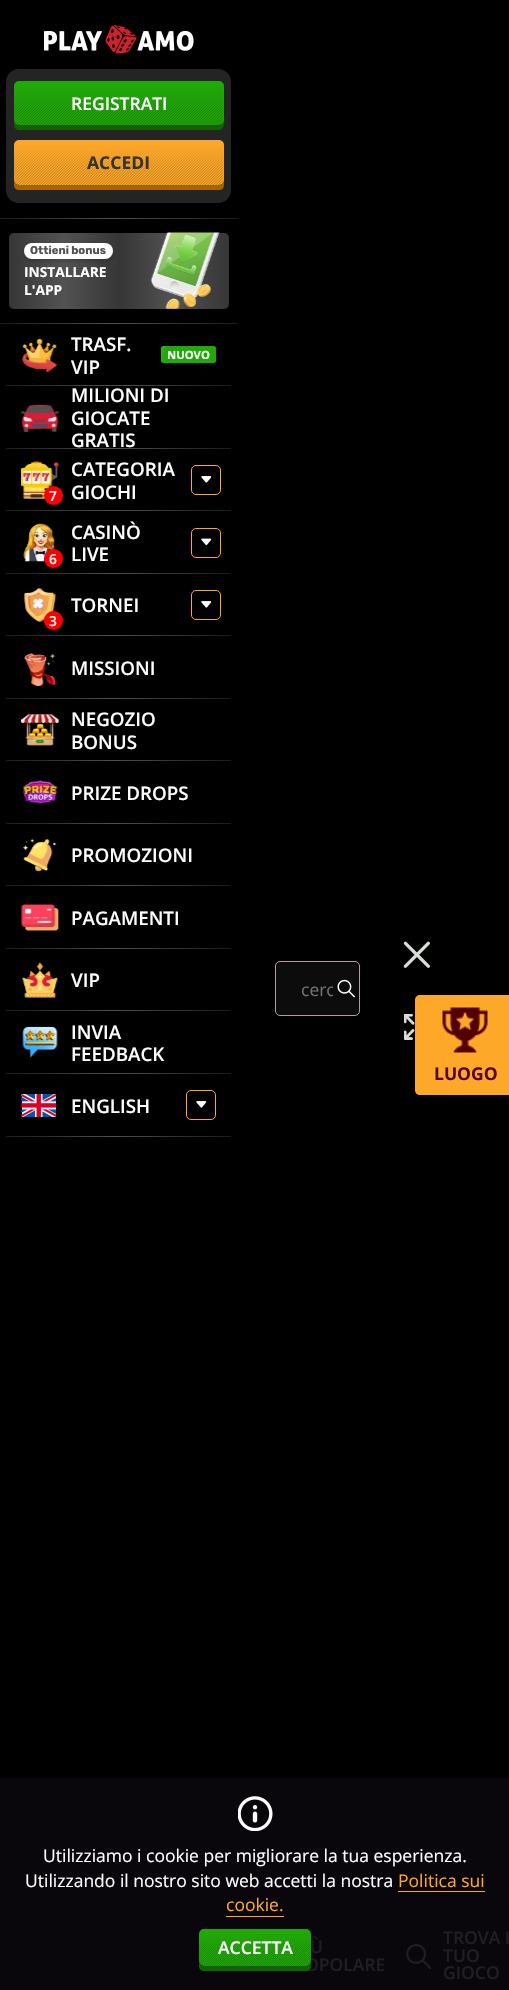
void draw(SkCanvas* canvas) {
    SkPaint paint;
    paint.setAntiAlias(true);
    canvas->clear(0xFF000000);
    paint.setColor(0xFF0A070C);
    canvas->drawRect(SkRect::MakeXYWH(0, 1778, 509, 212), paint);
    canvas->drawImageRect(SkImages::DeferredFromEncodedData(SkData::MakeFromFileName("img1.png")), SkRect::MakeXYWH(44, 25, 150, 29), SkSamplingOptions());
    paint.setColor(0xFF242424);
    canvas->drawRoundRect(SkRect::MakeXYWH(6, 69, 225, 134), 13, 13, paint);
    paint.setColor(0xFF136005);
    canvas->drawPath(SkPathBuilder().moveTo(14, 122).cubicTo(14, 125, 14, 130, 19, 130).lineTo(219, 130).cubicTo(226, 130, 224, 118, 224, 114).lineTo(224, 89).lineTo(224, 120).cubicTo(224, 123, 222, 125, 219, 125).lineTo(19, 125).cubicTo(17, 125, 15, 124, 14, 122).close().detach(), paint);
    paint.setColor(0xFF21A909);
    canvas->drawRoundRect(SkRect::MakeXYWH(14, 81, 210, 44), 5, 5, paint);
    canvas->drawImageRect(SkImages::DeferredFromEncodedData(SkData::MakeFromFileName("img2.png")), SkRect::MakeXYWH(14, 87, 210, 38), SkSamplingOptions());
    SkFont font1(fontMgr->matchFamilyStyle("Open Sans", SkFontStyle(600, SkFontStyle::kNormal_Width, SkFontStyle::kUpright_Slant)), 17.5f);
    font1.setSubpixel(true);
    paint.setColor(0xFFFFFFFF);
    canvas->drawString("REGISTRATI", 71, 110, font1, paint);
    paint.setColor(0xFFA56302);
    canvas->drawPath(SkPathBuilder().moveTo(14, 182).lineTo(14, 185).cubicTo(14, 188, 16, 190, 19, 190).lineTo(219, 190).cubicTo(222, 190, 224, 188, 224, 185).lineTo(224, 148).lineTo(224, 180).cubicTo(224, 183, 222, 185, 219, 185).lineTo(19, 185).cubicTo(17, 185, 15, 184, 14, 182).close().detach(), paint);
    paint.setColor(0xFFFDA829);
    canvas->drawRoundRect(SkRect::MakeXYWH(14, 140, 210, 45), 5, 5, paint);
    canvas->drawImageRect(SkImages::DeferredFromEncodedData(SkData::MakeFromFileName("img3.png")), SkRect::MakeXYWH(14, 145, 210, 40), SkSamplingOptions());
    SkFont font2(fontMgr->matchFamilyStyle("Open Sans", SkFontStyle::Bold()), 17.5f);
    font2.setSubpixel(true);
    paint.setColor(0xFF333333);
    canvas->drawString("ACCEDI", 87, 169, font2, paint);
    {
        const SkColor colors[] = {0xFF1B1B1B, 0xFF504F4F, 0xFF1B1B1B};
        const float stops[] = {0, 0.52f, 1};
        const SkPoint ends[] = {{238, 218}, {0, 218}};
        paint.setShader(SkGradientShader::MakeLinear(ends, colors, stops, 3, SkTileMode::kClamp));
        paint.setAlpha(255);
    }
    canvas->drawRect(SkRect::MakeXYWH(0, 218, 238, 1), paint);
    {
        const SkColor colors[] = {0xFF363636, 0xFF525252, 0xFF363636, 0xFF525252, 0xFF363636};
        const float stops[] = {0, 0.25f, 0.5f, 0.75f, 1};
        const SkPoint ends[] = {{9, 271}, {229, 271}};
        paint.setShader(SkGradientShader::MakeLinear(ends, colors, stops, 5, SkTileMode::kClamp));
        paint.setAlpha(255);
    }
    canvas->drawRoundRect(SkRect::MakeXYWH(9, 233, 220, 76), 5, 5, paint);
    paint.setShader(nullptr);
    paint.setColor(0x33000000);
    paint.setMaskFilter(SkMaskFilter::MakeBlur(kNormal_SkBlurStyle, 2));
    canvas->drawRoundRect(SkRect::MakeXYWH(24, 245, 89, 16), 8, 8, paint);
    paint.setMaskFilter(nullptr);
    paint.setColor(0xFFFFFFFF);
    canvas->drawRoundRect(SkRect::MakeXYWH(24, 243, 89, 16), 8, 8, paint);
    SkFont font3(fontMgr->matchFamilyStyle("Rubik", SkFontStyle::Bold()), 11.25f);
    font3.setSubpixel(true);
    paint.setColor(0xFF525252);
    canvas->drawString("Ottieni bonus", 30, 254, font3, paint);
    SkFont font4(fontMgr->matchFamilyStyle("Open Sans", SkFontStyle::Bold()), 13.75f);
    font4.setSubpixel(true);
    paint.setColor(0xFFFFFFFF);
    canvas->drawString("INSTALLARE", 24, 277, font4, paint);
    canvas->drawString("L'APP", 24, 295, font4, paint);
    canvas->drawImageRect(SkImages::DeferredFromEncodedData(SkData::MakeFromFileName("img4.png")), SkRect::MakeXYWH(150, 232, 70, 77), SkSamplingOptions());
    {
        const SkColor colors[] = {0xFF1B1B1B, 0xFF504F4F, 0xFF1B1B1B};
        const float stops[] = {0, 0.52f, 1};
        const SkPoint ends[] = {{238, 323}, {0, 323}};
        paint.setShader(SkGradientShader::MakeLinear(ends, colors, stops, 3, SkTileMode::kClamp));
        paint.setAlpha(255);
    }
    canvas->drawRect(SkRect::MakeXYWH(0, 323, 238, 1), paint);
    canvas->drawImageRect(SkImages::DeferredFromEncodedData(SkData::MakeFromFileName("img5.png")), SkRect::MakeXYWH(22, 338, 36, 35), SkSamplingOptions());
    SkFont font5(fontMgr->matchFamilyStyle("Open Sans", SkFontStyle(600, SkFontStyle::kNormal_Width, SkFontStyle::kUpright_Slant)), 18.75f);
    font5.setSubpixel(true);
    paint.setShader(nullptr);
    paint.setColor(0xFFFFFFFF);
    canvas->drawString("TRASF.", 71, 351, font5, paint);
    canvas->drawString("VIP", 71, 374, font5, paint);
    {
        const SkColor colors[] = {0xFF21A909, 0xFF3CD567, 0xFF21A909};
        const float stops[] = {0, 0.29f, 0.44f};
        const SkPoint ends[] = {{125, 342}, {217, 360}};
        paint.setShader(SkGradientShader::MakeLinear(ends, colors, stops, 3, SkTileMode::kClamp));
        paint.setAlpha(255);
    }
    canvas->drawRoundRect(SkRect::MakeXYWH(161, 346, 55, 17), 2.5f, 2.5f, paint);
    SkFont font6(fontMgr->matchFamilyStyle("Open Sans", SkFontStyle::Bold()), 11.25f);
    font6.setSubpixel(true);
    paint.setShader(nullptr);
    paint.setColor(0xFFFFFFFF);
    canvas->drawString("NUOVO", 167, 359, font6, paint);
    {
        const SkColor colors[] = {0xFF1B1B1B, 0xFF504F4F, 0xFF1B1B1B};
        const float stops[] = {0, 0.52f, 1};
        const SkPoint ends[] = {{231, 386}, {6.2f, 386}};
        paint.setShader(SkGradientShader::MakeLinear(ends, colors, stops, 3, SkTileMode::kClamp));
        paint.setAlpha(255);
    }
    canvas->drawRect(SkRect::MakeXYWH(6, 385, 225, 1), paint);
    paint.setShader(nullptr);
    paint.setColor(0xFFFFFFFF);
    canvas->drawString("MILIONI DI", 71, 402, font5, paint);
    canvas->drawImageRect(SkImages::DeferredFromEncodedData(SkData::MakeFromFileName("img6.png")), SkRect::MakeXYWH(21, 404, 38, 28), SkSamplingOptions());
    canvas->drawString("GIOCATE", 71, 425, font5, paint);
    canvas->drawString("GRATIS", 71, 447, font5, paint);
    {
        const SkColor colors[] = {0xFF1B1B1B, 0xFF504F4F, 0xFF1B1B1B};
        const float stops[] = {0, 0.52f, 1};
        const SkPoint ends[] = {{231, 448}, {6.2f, 448}};
        paint.setShader(SkGradientShader::MakeLinear(ends, colors, stops, 3, SkTileMode::kClamp));
        paint.setAlpha(255);
    }
    canvas->drawRect(SkRect::MakeXYWH(6, 448, 225, 1), paint);
    canvas->drawImageRect(SkImages::DeferredFromEncodedData(SkData::MakeFromFileName("img7.png")), SkRect::MakeXYWH(21, 461, 38, 38), SkSamplingOptions());
    paint.setShader(nullptr);
    paint.setColor(0xFFFFFFFF);
    canvas->drawString("CATEGORIA", 71, 476, font5, paint);
    paint.setColor(0xFFFF0002);
    canvas->drawCircle(53.5f, 495.5f, 9.5f, paint);
    SkFont font7(fontMgr->matchFamilyStyle("Open Sans", SkFontStyle(600, SkFontStyle::kNormal_Width, SkFontStyle::kUpright_Slant)), 13.75f);
    font7.setSubpixel(true);
    paint.setColor(0xFFFFFFFF);
    canvas->drawString("7", 49, 501, font7, paint);
    canvas->drawString("GIOCHI", 71, 499, font5, paint);
    paint.setStyle(SkPaint::kStroke_Style);
    paint.setStrokeWidth(1);
    paint.setColor(0xFFFDA829);
    canvas->drawRoundRect(SkRect::MakeXYWH(191.5f, 465.5f, 29, 29), 4.5f, 4.5f, paint);
    canvas->drawImageRect(SkImages::DeferredFromEncodedData(SkData::MakeFromFileName("img8.png")), SkRect::MakeXYWH(201, 476, 11, 7), SkSamplingOptions());
    paint.setStyle(SkPaint::kFill_Style);
    {
        const SkColor colors[] = {0xFF1B1B1B, 0xFF504F4F, 0xFF1B1B1B};
        const float stops[] = {0, 0.52f, 1};
        const SkPoint ends[] = {{231, 511}, {6.2f, 511}};
        paint.setShader(SkGradientShader::MakeLinear(ends, colors, stops, 3, SkTileMode::kClamp));
        paint.setAlpha(255);
    }
    canvas->drawRect(SkRect::MakeXYWH(6, 510, 225, 1), paint);
    canvas->drawImageRect(SkImages::DeferredFromEncodedData(SkData::MakeFromFileName("img9.png")), SkRect::MakeXYWH(23, 523, 32, 39), SkSamplingOptions());
    paint.setShader(nullptr);
    paint.setColor(0xFFFFFFFF);
    canvas->drawString("CASINÒ", 71, 539, font5, paint);
    paint.setColor(0xFFFF0002);
    canvas->drawCircle(53.5f, 558.5f, 9.5f, paint);
    paint.setColor(0xFFFFFFFF);
    canvas->drawString("6", 49, 564, font7, paint);
    canvas->drawString("LIVE", 71, 561, font5, paint);
    paint.setStyle(SkPaint::kStroke_Style);
    paint.setColor(0xFFFDA829);
    canvas->drawRoundRect(SkRect::MakeXYWH(191.5f, 528.5f, 29, 29), 4.5f, 4.5f, paint);
    canvas->drawImageRect(SkImages::DeferredFromEncodedData(SkData::MakeFromFileName("img10.png")), SkRect::MakeXYWH(201, 538, 11, 8), SkSamplingOptions());
    paint.setStyle(SkPaint::kFill_Style);
    {
        const SkColor colors[] = {0xFF1B1B1B, 0xFF504F4F, 0xFF1B1B1B};
        const float stops[] = {0, 0.52f, 1};
        const SkPoint ends[] = {{231, 573}, {6.2f, 573}};
        paint.setShader(SkGradientShader::MakeLinear(ends, colors, stops, 3, SkTileMode::kClamp));
        paint.setAlpha(255);
    }
    canvas->drawRect(SkRect::MakeXYWH(6, 573, 225, 1), paint);
    canvas->drawImageRect(SkImages::DeferredFromEncodedData(SkData::MakeFromFileName("img11.png")), SkRect::MakeXYWH(24, 588, 33, 34), SkSamplingOptions());
    paint.setShader(nullptr);
    paint.setColor(0xFFFFFFFF);
    canvas->drawString("TORNEI", 71, 612, font5, paint);
    paint.setStyle(SkPaint::kStroke_Style);
    paint.setColor(0xFFFDA829);
    canvas->drawRoundRect(SkRect::MakeXYWH(191.5f, 590.5f, 29, 29), 4.5f, 4.5f, paint);
    canvas->drawImageRect(SkImages::DeferredFromEncodedData(SkData::MakeFromFileName("img8.png")), SkRect::MakeXYWH(201, 601, 11, 7), SkSamplingOptions());
    paint.setStyle(SkPaint::kFill_Style);
    paint.setColor(0xFFFF0002);
    canvas->drawCircle(53.5f, 620.5f, 9.5f, paint);
    paint.setColor(0xFFFFFFFF);
    canvas->drawString("3", 49, 626, font7, paint);
    {
        const SkColor colors[] = {0xFF1B1B1B, 0xFF504F4F, 0xFF1B1B1B};
        const float stops[] = {0, 0.52f, 1};
        const SkPoint ends[] = {{231, 636}, {6.2f, 636}};
        paint.setShader(SkGradientShader::MakeLinear(ends, colors, stops, 3, SkTileMode::kClamp));
        paint.setAlpha(255);
    }
    canvas->drawRect(SkRect::MakeXYWH(6, 635, 225, 1), paint);
    canvas->drawImageRect(SkImages::DeferredFromEncodedData(SkData::MakeFromFileName("img12.png")), SkRect::MakeXYWH(24, 653, 32, 33), SkSamplingOptions());
    paint.setShader(nullptr);
    paint.setColor(0xFFFFFFFF);
    canvas->drawString("MISSIONI", 71, 675, font5, paint);
    {
        const SkColor colors[] = {0xFF1B1B1B, 0xFF504F4F, 0xFF1B1B1B};
        const float stops[] = {0, 0.52f, 1};
        const SkPoint ends[] = {{231, 698}, {6.2f, 698}};
        paint.setShader(SkGradientShader::MakeLinear(ends, colors, stops, 3, SkTileMode::kClamp));
        paint.setAlpha(255);
    }
    canvas->drawRect(SkRect::MakeXYWH(6, 698, 225, 1), paint);
    canvas->drawImageRect(SkImages::DeferredFromEncodedData(SkData::MakeFromFileName("img13.png")), SkRect::MakeXYWH(21, 714, 38, 32), SkSamplingOptions());
    paint.setShader(nullptr);
    paint.setColor(0xFFFFFFFF);
    canvas->drawString("NEGOZIO", 71, 726, font5, paint);
    canvas->drawString("BONUS", 71, 749, font5, paint);
    {
        const SkColor colors[] = {0xFF1B1B1B, 0xFF504F4F, 0xFF1B1B1B};
        const float stops[] = {0, 0.52f, 1};
        const SkPoint ends[] = {{231, 761}, {6.2f, 761}};
        paint.setShader(SkGradientShader::MakeLinear(ends, colors, stops, 3, SkTileMode::kClamp));
        paint.setAlpha(255);
    }
    canvas->drawRect(SkRect::MakeXYWH(6, 760, 225, 1), paint);
    canvas->drawImageRect(SkImages::DeferredFromEncodedData(SkData::MakeFromFileName("img14.png")), SkRect::MakeXYWH(22, 780, 36, 24), SkSamplingOptions());
    paint.setShader(nullptr);
    paint.setColor(0xFFFFFFFF);
    canvas->drawString("PRIZE DROPS", 71, 800, font5, paint);
    {
        const SkColor colors[] = {0xFF1B1B1B, 0xFF504F4F, 0xFF1B1B1B};
        const float stops[] = {0, 0.52f, 1};
        const SkPoint ends[] = {{231, 823}, {6.2f, 823}};
        paint.setShader(SkGradientShader::MakeLinear(ends, colors, stops, 3, SkTileMode::kClamp));
        paint.setAlpha(255);
    }
    canvas->drawRect(SkRect::MakeXYWH(6, 823, 225, 1), paint);
    canvas->drawImageRect(SkImages::DeferredFromEncodedData(SkData::MakeFromFileName("img15.png")), SkRect::MakeXYWH(23, 839, 34, 33), SkSamplingOptions());
    paint.setShader(nullptr);
    paint.setColor(0xFFFFFFFF);
    canvas->drawString("PROMOZIONI", 71, 862, font5, paint);
    {
        const SkColor colors[] = {0xFF1B1B1B, 0xFF504F4F, 0xFF1B1B1B};
        const float stops[] = {0, 0.52f, 1};
        const SkPoint ends[] = {{231, 886}, {6.2f, 886}};
        paint.setShader(SkGradientShader::MakeLinear(ends, colors, stops, 3, SkTileMode::kClamp));
        paint.setAlpha(255);
    }
    canvas->drawRect(SkRect::MakeXYWH(6, 885, 225, 1), paint);
    canvas->drawImageRect(SkImages::DeferredFromEncodedData(SkData::MakeFromFileName("img16.png")), SkRect::MakeXYWH(21, 904, 38, 27), SkSamplingOptions());
    paint.setShader(nullptr);
    paint.setColor(0xFFFFFFFF);
    canvas->drawString("PAGAMENTI", 71, 925, font5, paint);
    {
        const SkColor colors[] = {0xFF1B1B1B, 0xFF504F4F, 0xFF1B1B1B};
        const float stops[] = {0, 0.52f, 1};
        const SkPoint ends[] = {{231, 948}, {6.2f, 948}};
        paint.setShader(SkGradientShader::MakeLinear(ends, colors, stops, 3, SkTileMode::kClamp));
        paint.setAlpha(255);
    }
    canvas->drawRect(SkRect::MakeXYWH(6, 948, 225, 1), paint);
    canvas->drawImageRect(SkImages::DeferredFromEncodedData(SkData::MakeFromFileName("img17.png")), SkRect::MakeXYWH(22, 962, 36, 36), SkSamplingOptions());
    paint.setShader(nullptr);
    paint.setColor(0xFFFFFFFF);
    canvas->drawString("VIP", 71, 987, font5, paint);
    {
        const SkColor colors[] = {0xFF1B1B1B, 0xFF504F4F, 0xFF1B1B1B};
        const float stops[] = {0, 0.52f, 1};
        const SkPoint ends[] = {{231, 1011}, {6.2f, 1011}};
        paint.setShader(SkGradientShader::MakeLinear(ends, colors, stops, 3, SkTileMode::kClamp));
        paint.setAlpha(255);
    }
    canvas->drawRect(SkRect::MakeXYWH(6, 1010, 225, 1), paint);
    canvas->drawImageRect(SkImages::DeferredFromEncodedData(SkData::MakeFromFileName("img18.png")), SkRect::MakeXYWH(22, 1026, 36, 32), SkSamplingOptions());
    paint.setShader(nullptr);
    paint.setColor(0xFFFFFFFF);
    canvas->drawString("INVIA", 71, 1039, font5, paint);
    canvas->drawString("FEEDBACK", 71, 1061, font5, paint);
    {
        const SkColor colors[] = {0xFF1B1B1B, 0xFF504F4F, 0xFF1B1B1B};
        const float stops[] = {0, 0.52f, 1};
        const SkPoint ends[] = {{231, 1073}, {6.2f, 1073}};
        paint.setShader(SkGradientShader::MakeLinear(ends, colors, stops, 3, SkTileMode::kClamp));
        paint.setAlpha(255);
    }
    canvas->drawRect(SkRect::MakeXYWH(6, 1073, 225, 1), paint);
    canvas->drawImageRect(SkImages::DeferredFromEncodedData(SkData::MakeFromFileName("img19.png")), SkRect::MakeXYWH(21, 1094, 35, 24), SkSamplingOptions());
    paint.setShader(nullptr);
    paint.setColor(0xFFFFFFFF);
    canvas->drawString("ENGLISH", 71, 1113, font5, paint);
    paint.setStyle(SkPaint::kStroke_Style);
    paint.setColor(0xFFFDA829);
    canvas->drawRoundRect(SkRect::MakeXYWH(186.5f, 1090.5f, 29, 29), 4.5f, 4.5f, paint);
    canvas->drawImageRect(SkImages::DeferredFromEncodedData(SkData::MakeFromFileName("img8.png")), SkRect::MakeXYWH(196, 1101, 11, 7), SkSamplingOptions());
    paint.setStyle(SkPaint::kFill_Style);
    {
        const SkColor colors[] = {0xFF1B1B1B, 0xFF504F4F, 0xFF1B1B1B};
        const float stops[] = {0, 0.52f, 1};
        const SkPoint ends[] = {{231, 1137}, {6.2f, 1137}};
        paint.setShader(SkGradientShader::MakeLinear(ends, colors, stops, 3, SkTileMode::kClamp));
        paint.setAlpha(255);
    }
    canvas->drawRect(SkRect::MakeXYWH(6, 1136, 225, 1), paint);
    paint.setShader(nullptr);
    paint.setColor(0xFF0C0C0C);
    canvas->drawRoundRect(SkRect::MakeXYWH(275.5f, 961.5f, 84, 54), 4.5f, 4.5f, paint);
    paint.setStyle(SkPaint::kStroke_Style);
    paint.setColor(0xFFB69AA5);
    canvas->drawRoundRect(SkRect::MakeXYWH(275.5f, 961.5f, 84, 54), 4.5f, 4.5f, paint);
    canvas->save();
    canvas->clipRect(SkRect::MakeXYWH(301, 978, 32, 23));
    SkFont font8(fontMgr->matchFamilyStyle("Open Sans", SkFontStyle::Normal()), 17.5f);
    font8.setSubpixel(true);
    paint.setStyle(SkPaint::kFill_Style);
    paint.setColor(0xFF737373);
    canvas->drawString("cerc", 301, 996, font8, paint);
    canvas->restore();
    canvas->drawImageRect(SkImages::DeferredFromEncodedData(SkData::MakeFromFileName("img20.png")), SkRect::MakeXYWH(337, 979, 18, 19), SkSamplingOptions());
    canvas->drawImageRect(SkImages::DeferredFromEncodedData(SkData::MakeFromFileName("img21.png")), SkRect::MakeXYWH(403, 941, 27, 27), SkSamplingOptions());
    canvas->drawImageRect(SkImages::DeferredFromEncodedData(SkData::MakeFromFileName("img22.png")), SkRect::MakeXYWH(404, 1014, 11, 26), SkSamplingOptions());
    paint.setColor(0xFFFDA829);
    canvas->drawPath(SkPathBuilder().moveTo(420, 995).lineTo(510, 995).lineTo(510, 1095).lineTo(420, 1095).cubicTo(417, 1095, 415, 1093, 415, 1090).lineTo(415, 1000).cubicTo(415, 997, 417, 995, 420, 995).close().detach(), paint);
    canvas->drawImageRect(SkImages::DeferredFromEncodedData(SkData::MakeFromFileName("img23.png")), SkRect::MakeXYWH(442, 1007, 46, 46), SkSamplingOptions());
    paint.setColor(0xFF590634);
    canvas->drawString("LUOGO", 434, 1080, font2, paint);
    paint.setColor(0xFF211E23);
    canvas->drawString("Ù", 310, 1953, font1, paint);
    canvas->drawString("OPOLARE", 305, 1971, font1, paint);
    canvas->drawImageRect(SkImages::DeferredFromEncodedData(SkData::MakeFromFileName("img24.png")), SkRect::MakeXYWH(406, 1944, 26, 25), SkSamplingOptions());
    canvas->drawString("TROVA I", 443, 1944, font1, paint);
    canvas->drawString("TUO", 443, 1962, font1, paint);
    canvas->drawString("GIOCO", 443, 1979, font1, paint);
    canvas->drawImageRect(SkImages::DeferredFromEncodedData(SkData::MakeFromFileName("img25.png")), SkRect::MakeXYWH(238, 1796, 35, 35), SkSamplingOptions());
    paint.setColor(0xFFFFFFFF);
    canvas->drawString("Utilizziamo i cookie per migliorare la tua esperienza.", 43, 1862, font8, paint);
    canvas->drawString("Utilizzando il nostro sito web accetti la nostra", 25, 1887, font8, paint);
    paint.setColor(0xFFFDA829);
    canvas->drawString("Politica sui", 398, 1887, font8, paint);
    canvas->drawRect(SkRect::MakeXYWH(398, 1891, 87, 1), paint);
    canvas->drawString("cookie.", 226, 1911, font8, paint);
    canvas->drawRect(SkRect::MakeXYWH(226, 1916, 58, 1), paint);
    paint.setColor(0xFF136005);
    canvas->drawPath(SkPathBuilder().moveTo(199, 1963).lineTo(199, 1966).cubicTo(199, 1969, 201, 1971, 204, 1971).lineTo(306, 1971).cubicTo(309, 1971, 311, 1969, 311, 1966).lineTo(311, 1963).cubicTo(310, 1965, 308, 1966, 306, 1966).lineTo(204, 1966).cubicTo(202, 1966, 200, 1965, 199, 1963).close().detach(), paint);
    paint.setColor(0xFF21A909);
    canvas->drawRoundRect(SkRect::MakeXYWH(199, 1929, 112, 37), 5, 5, paint);
    canvas->drawImageRect(SkImages::DeferredFromEncodedData(SkData::MakeFromFileName("img26.png")), SkRect::MakeXYWH(199, 1933, 112, 33), SkSamplingOptions());
    paint.setColor(0xFFFFFFFF);
    canvas->drawString("ACCETTA", 218, 1954, font1, paint);
}
